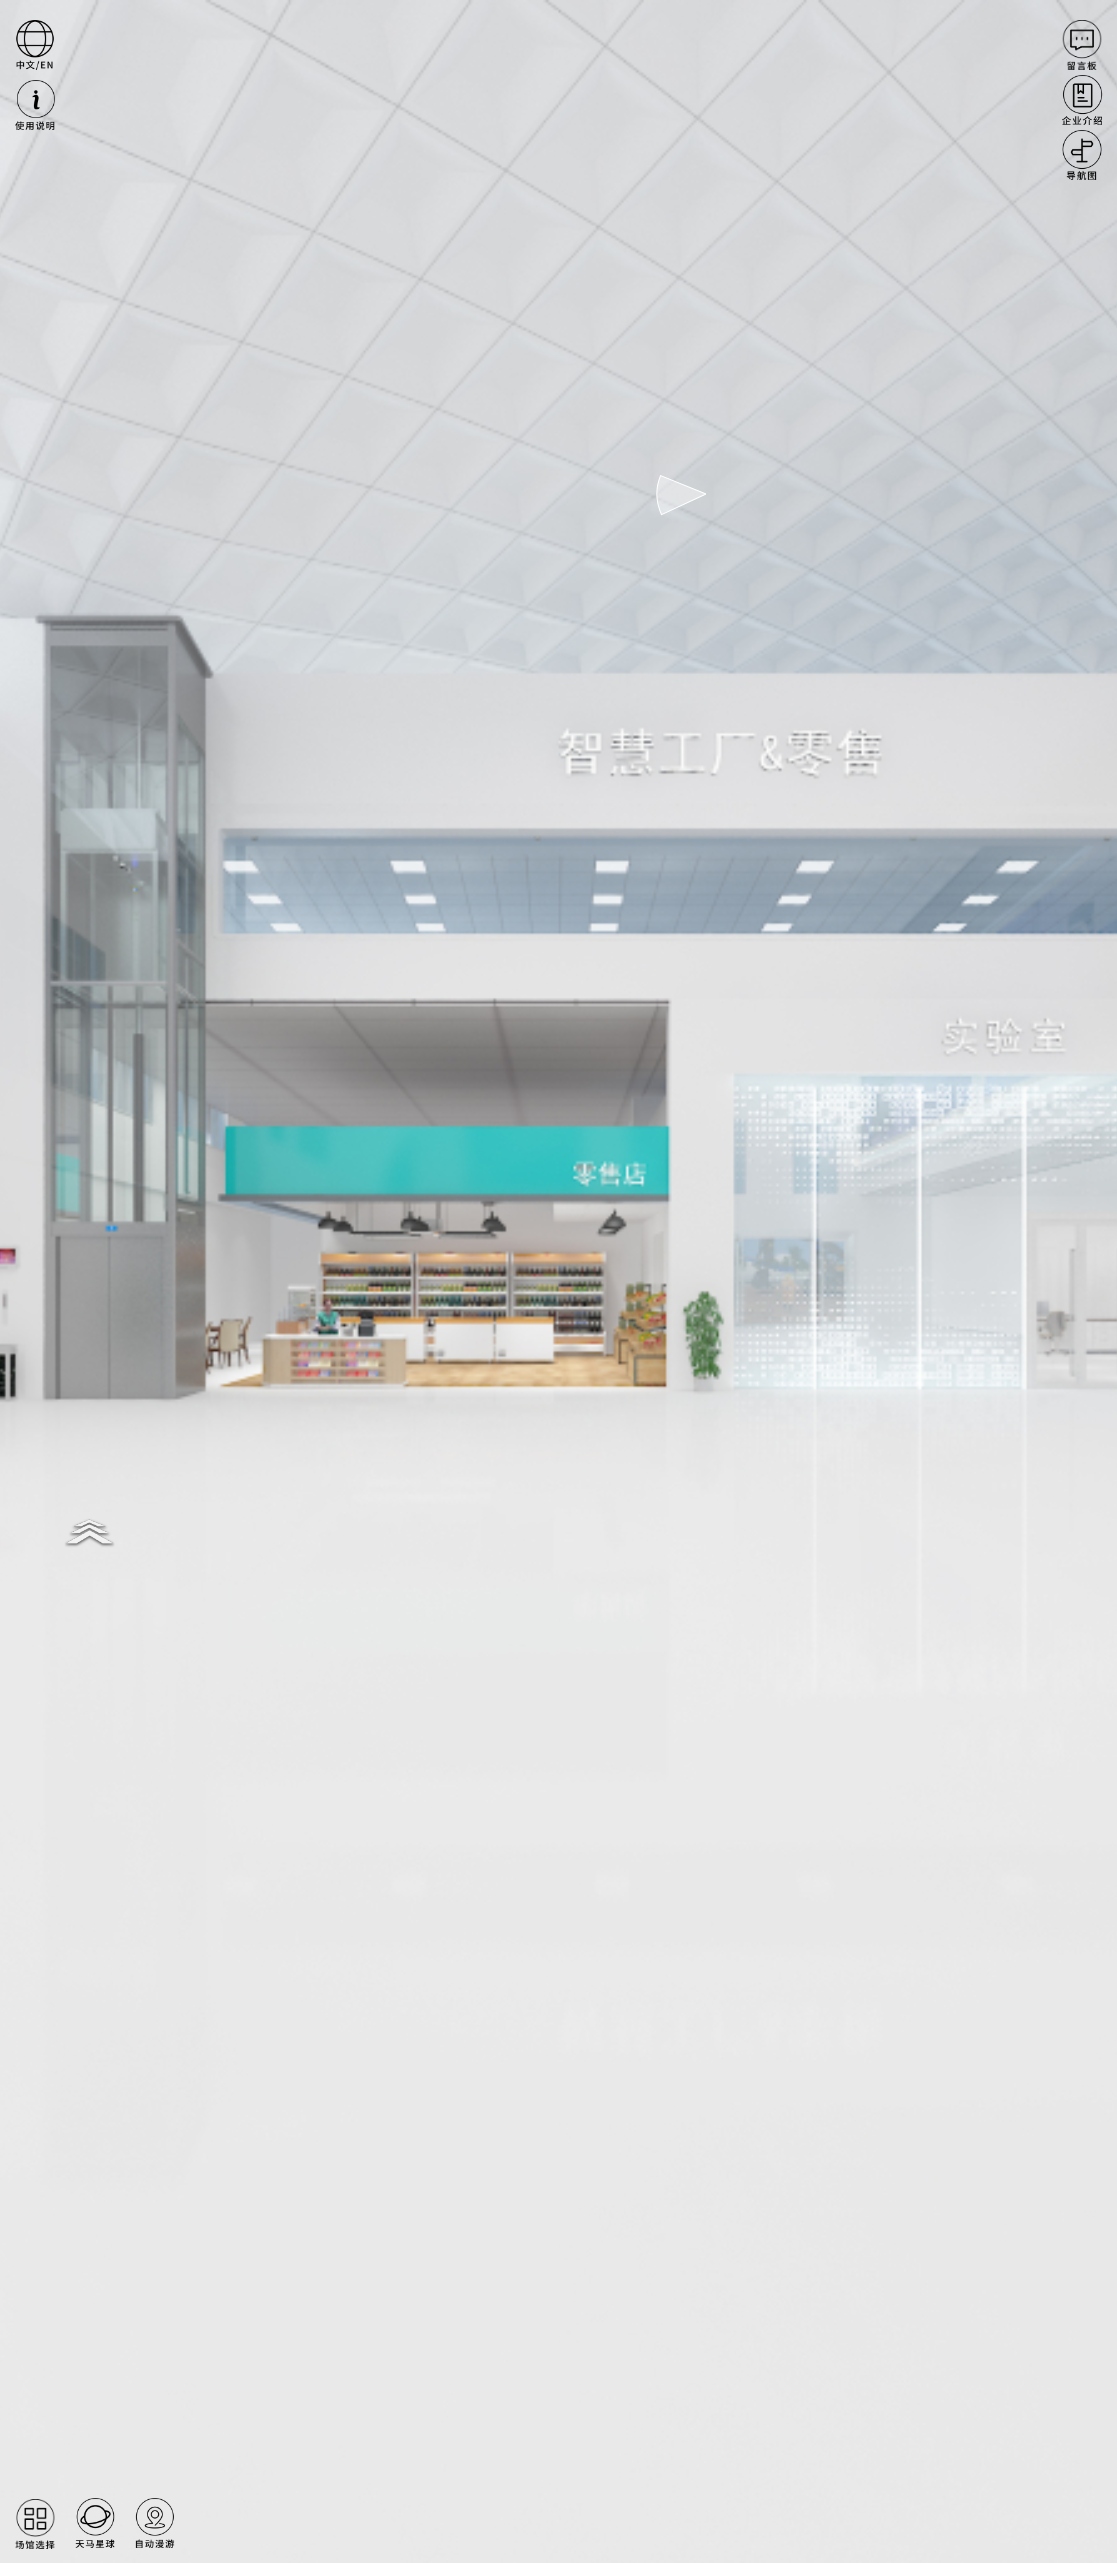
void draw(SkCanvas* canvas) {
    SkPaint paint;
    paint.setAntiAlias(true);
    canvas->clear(0xFFFFFFFF);
    canvas->drawImageRect(SkImages::DeferredFromEncodedData(SkData::MakeFromFileName("img1.png")), SkRect::MakeXYWH(0, 0, 1117, 2563), SkSamplingOptions());
    canvas->drawImageRect(SkImages::DeferredFromEncodedData(SkData::MakeFromFileName("img2.png")), SkRect::MakeXYWH(16, 20, 38, 50), SkSamplingOptions());
    canvas->drawImageRect(SkImages::DeferredFromEncodedData(SkData::MakeFromFileName("img3.png")), SkRect::MakeXYWH(15, 80, 40, 50), SkSamplingOptions());
    canvas->drawImageRect(SkImages::DeferredFromEncodedData(SkData::MakeFromFileName("img4.png")), SkRect::MakeXYWH(1062, 75, 41, 50), SkSamplingOptions());
    canvas->drawImageRect(SkImages::DeferredFromEncodedData(SkData::MakeFromFileName("img5.png")), SkRect::MakeXYWH(1062, 130, 40, 50), SkSamplingOptions());
    canvas->drawImageRect(SkImages::DeferredFromEncodedData(SkData::MakeFromFileName("img6.png")), SkRect::MakeXYWH(75, 2498, 40, 50), SkSamplingOptions());
    canvas->drawImageRect(SkImages::DeferredFromEncodedData(SkData::MakeFromFileName("img7.png")), SkRect::MakeXYWH(135, 2498, 40, 50), SkSamplingOptions());
    canvas->drawImageRect(SkImages::DeferredFromEncodedData(SkData::MakeFromFileName("img8.png")), SkRect::MakeXYWH(656, 475, 50, 41), SkSamplingOptions());
    canvas->drawImageRect(SkImages::DeferredFromEncodedData(SkData::MakeFromFileName("img9.png")), SkRect::MakeXYWH(1062, 20, 40, 50), SkSamplingOptions());
    canvas->drawImageRect(SkImages::DeferredFromEncodedData(SkData::MakeFromFileName("img10.png")), SkRect::MakeXYWH(15, 2499, 40, 50), SkSamplingOptions());
}
